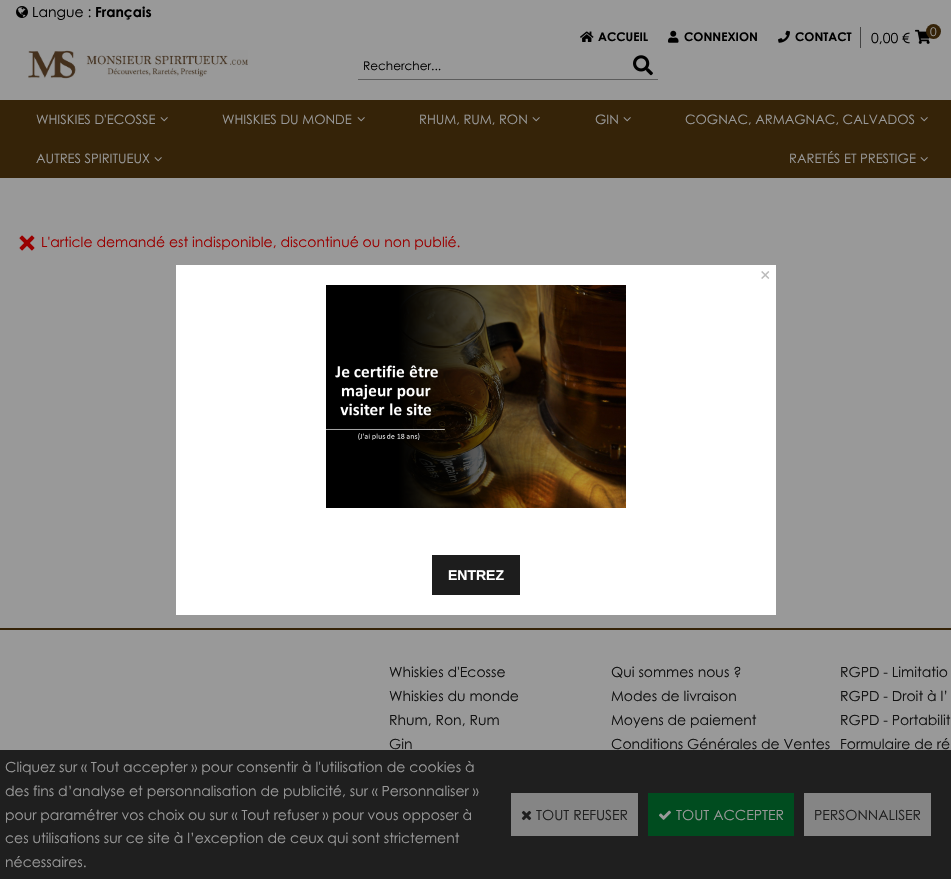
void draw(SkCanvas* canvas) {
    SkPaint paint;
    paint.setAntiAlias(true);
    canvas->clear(0xFF999999);
    canvas->drawImageRect(SkImages::DeferredFromEncodedData(SkData::MakeFromFileName("img1.png")), SkRect::MakeXYWH(16, 6, 12, 12), SkSamplingOptions());
    SkFont font1(fontMgr->matchFamilyStyle("Century Gothic", SkFontStyle::Normal()), 14);
    font1.setSubpixel(true);
    paint.setColor(0xFF000000);
    canvas->drawString("Langue :", 32, 17, font1, paint);
    SkFont font2(fontMgr->matchFamilyStyle("Century Gothic", SkFontStyle::Bold()), 14);
    font2.setSubpixel(true);
    canvas->drawString("Français", 95, 17, font2, paint);
    canvas->drawImageRect(SkImages::DeferredFromEncodedData(SkData::MakeFromFileName("img2.png")), SkRect::MakeXYWH(580, 31, 14, 11), SkSamplingOptions());
    SkFont font3(fontMgr->matchFamilyStyle("Century Gothic", SkFontStyle::Bold()), 12);
    font3.setSubpixel(true);
    canvas->drawString("ACCUEIL", 598, 41, font3, paint);
    canvas->drawImageRect(SkImages::DeferredFromEncodedData(SkData::MakeFromFileName("img3.png")), SkRect::MakeXYWH(668, 30, 11, 13), SkSamplingOptions());
    canvas->drawString("CONNEXION", 684, 41, font3, paint);
    canvas->drawImageRect(SkImages::DeferredFromEncodedData(SkData::MakeFromFileName("img4.png")), SkRect::MakeXYWH(778, 30, 12, 13), SkSamplingOptions());
    canvas->drawString("CONTACT", 795, 41, font3, paint);
    paint.setColor(0xFF434343);
    canvas->drawRect(SkRect::MakeXYWH(860, 27, 1, 21), paint);
    paint.setColor(0xFF000000);
    canvas->drawString("0,00 €", 871, 43, font1, paint);
    canvas->drawImageRect(SkImages::DeferredFromEncodedData(SkData::MakeFromFileName("img5.png")), SkRect::MakeXYWH(915, 29, 15, 15), SkSamplingOptions());
    paint.setColor(0xFF352308);
    canvas->drawCircle(933.5f, 31.5f, 7.5f, paint);
    SkFont font4(fontMgr->matchFamilyStyle("Century Gothic", SkFontStyle::Normal()), 12);
    font4.setSubpixel(true);
    paint.setColor(0xFF999999);
    canvas->drawString("0", 930, 36, font4, paint);
    canvas->drawImageRect(SkImages::DeferredFromEncodedData(SkData::MakeFromFileName("img6.png")), SkRect::MakeXYWH(28, 50, 220, 29), SkSamplingOptions());
    paint.setColor(0xFF5C5C5C);
    canvas->drawRect(SkRect::MakeXYWH(358, 79, 300, 1), paint);
    paint.setColor(0xFF000000);
    canvas->drawString("Rechercher...", 363, 70, font4, paint);
    canvas->drawImageRect(SkImages::DeferredFromEncodedData(SkData::MakeFromFileName("img7.png")), SkRect::MakeXYWH(633, 55, 20, 21), SkSamplingOptions());
    paint.setColor(0xFF352308);
    canvas->drawRect(SkRect::MakeXYWH(0, 100, 951, 78), paint);
    SkFont font5(fontMgr->matchFamilyStyle("Century Gothic", SkFontStyle::Normal()), 13);
    font5.setSubpixel(true);
    paint.setColor(0xFF999999);
    canvas->drawString("WHISKIES D'ECOSSE", 36, 124, font5, paint);
    canvas->drawImageRect(SkImages::DeferredFromEncodedData(SkData::MakeFromFileName("img8.png")), SkRect::MakeXYWH(160, 117, 8, 5), SkSamplingOptions());
    canvas->drawString("WHISKIES DU MONDE", 222, 124, font5, paint);
    canvas->drawImageRect(SkImages::DeferredFromEncodedData(SkData::MakeFromFileName("img8.png")), SkRect::MakeXYWH(357, 117, 8, 5), SkSamplingOptions());
    canvas->drawString("RHUM, RUM, RON", 419, 124, font5, paint);
    canvas->drawImageRect(SkImages::DeferredFromEncodedData(SkData::MakeFromFileName("img8.png")), SkRect::MakeXYWH(532, 117, 8, 5), SkSamplingOptions());
    canvas->drawString("GIN", 595, 124, font5, paint);
    canvas->drawImageRect(SkImages::DeferredFromEncodedData(SkData::MakeFromFileName("img8.png")), SkRect::MakeXYWH(623, 117, 8, 5), SkSamplingOptions());
    canvas->drawString("COGNAC, ARMAGNAC, CALVADOS", 685, 124, font5, paint);
    canvas->drawImageRect(SkImages::DeferredFromEncodedData(SkData::MakeFromFileName("img8.png")), SkRect::MakeXYWH(920, 117, 8, 5), SkSamplingOptions());
    canvas->drawString("AUTRES SPIRITUEUX", 36, 163, font5, paint);
    canvas->drawImageRect(SkImages::DeferredFromEncodedData(SkData::MakeFromFileName("img8.png")), SkRect::MakeXYWH(154, 157, 8, 5), SkSamplingOptions());
    canvas->drawString("RARETÉS ET PRESTIGE", 789, 163, font5, paint);
    canvas->drawImageRect(SkImages::DeferredFromEncodedData(SkData::MakeFromFileName("img8.png")), SkRect::MakeXYWH(920, 157, 8, 5), SkSamplingOptions());
    canvas->drawImageRect(SkImages::DeferredFromEncodedData(SkData::MakeFromFileName("img9.png")), SkRect::MakeXYWH(19, 235, 16, 16), SkSamplingOptions());
    paint.setColor(0xFF990000);
    canvas->drawString("L'article demandé est indisponible, discontinué ou non publié.", 41, 247, font1, paint);
    paint.setColor(0xFF352308);
    canvas->drawRect(SkRect::MakeXYWH(0, 628, 951, 2), paint);
    paint.setColor(0xFF111111);
    canvas->drawString("Whiskies d'Ecosse", 389, 677, font1, paint);
    canvas->drawString("Whiskies du monde", 389, 701, font1, paint);
    canvas->drawString("Rhum, Ron, Rum", 389, 725, font1, paint);
    canvas->drawString("Gin", 389, 749, font1, paint);
    canvas->drawString("Qui sommes nous ?", 611, 677, font1, paint);
    canvas->drawString("Modes de livraison", 611, 701, font1, paint);
    canvas->drawString("Moyens de paiement", 611, 725, font1, paint);
    canvas->drawString("Conditions Générales de Ventes", 611, 749, font1, paint);
    canvas->drawString("RGPD - Limitatio", 840, 677, font1, paint);
    canvas->drawString("RGPD - Droit à l’", 840, 701, font1, paint);
    canvas->drawString("RGPD - Portabilit", 840, 725, font1, paint);
    canvas->drawString("Formulaire de ré", 840, 749, font1, paint);
    paint.setColor(0xFF1F1F1F);
    canvas->drawRect(SkRect::MakeXYWH(0, 750, 951, 129), paint);
    paint.setColor(0xFF999999);
    canvas->drawString("Cliquez sur « Tout accepter » pour consentir à l'utilisation de cookies à", 5, 772, font1, paint);
    canvas->drawString("des fins d’analyse et personnalisation de publicité, sur « Personnaliser »", 5, 796, font1, paint);
    canvas->drawString("pour paramétrer vos choix ou sur « Tout refuser » pour vous opposer à", 5, 820, font1, paint);
    canvas->drawString("ces utilisations sur ce site à l’exception de ceux qui sont strictement", 5, 843, font1, paint);
    canvas->drawString("nécessaires.", 5, 867, font1, paint);
    paint.setColor(0xFF858585);
    canvas->drawRect(SkRect::MakeXYWH(511, 793, 127, 43), paint);
    canvas->drawImageRect(SkImages::DeferredFromEncodedData(SkData::MakeFromFileName("img10.png")), SkRect::MakeXYWH(521, 810, 11, 11), SkSamplingOptions());
    paint.setColor(0xFF1F1F1F);
    canvas->drawString("TOUT REFUSER", 536, 820, font1, paint);
    paint.setColor(0xFF004C1F);
    canvas->drawRect(SkRect::MakeXYWH(648, 793, 146, 43), paint);
    canvas->drawImageRect(SkImages::DeferredFromEncodedData(SkData::MakeFromFileName("img11.png")), SkRect::MakeXYWH(659, 810, 12, 10), SkSamplingOptions());
    paint.setColor(0xFF999999);
    canvas->drawString("TOUT ACCEPTER", 676, 820, font1, paint);
    paint.setColor(0xFF858585);
    canvas->drawRect(SkRect::MakeXYWH(804, 793, 127, 43), paint);
    paint.setColor(0xFF1F1F1F);
    canvas->drawString("PERSONNALISER", 814, 820, font1, paint);
    paint.setColor(0xFFFFFFFF);
    canvas->drawRect(SkRect::MakeXYWH(176, 265, 600, 350), paint);
    SkFont font6(fontMgr->matchFamilyStyle("Liberation Sans", SkFontStyle::Normal()), 18);
    font6.setSubpixel(true);
    paint.setColor(0xFFBBBBBB);
    canvas->drawString("×", 760, 281, font6, paint);
    canvas->drawImageRect(SkImages::DeferredFromEncodedData(SkData::MakeFromFileName("img12.png")), SkRect::MakeXYWH(326, 285, 300, 223), SkSamplingOptions());
    paint.setColor(0xFF1D1D1D);
    canvas->drawRect(SkRect::MakeXYWH(432, 555, 88, 40), paint);
    SkFont font7(fontMgr->matchFamilyStyle("Liberation Sans", SkFontStyle::Bold()), 14);
    font7.setSubpixel(true);
    paint.setColor(0xFFFFFFFF);
    canvas->drawString("ENTREZ", 448, 580, font7, paint);
}
